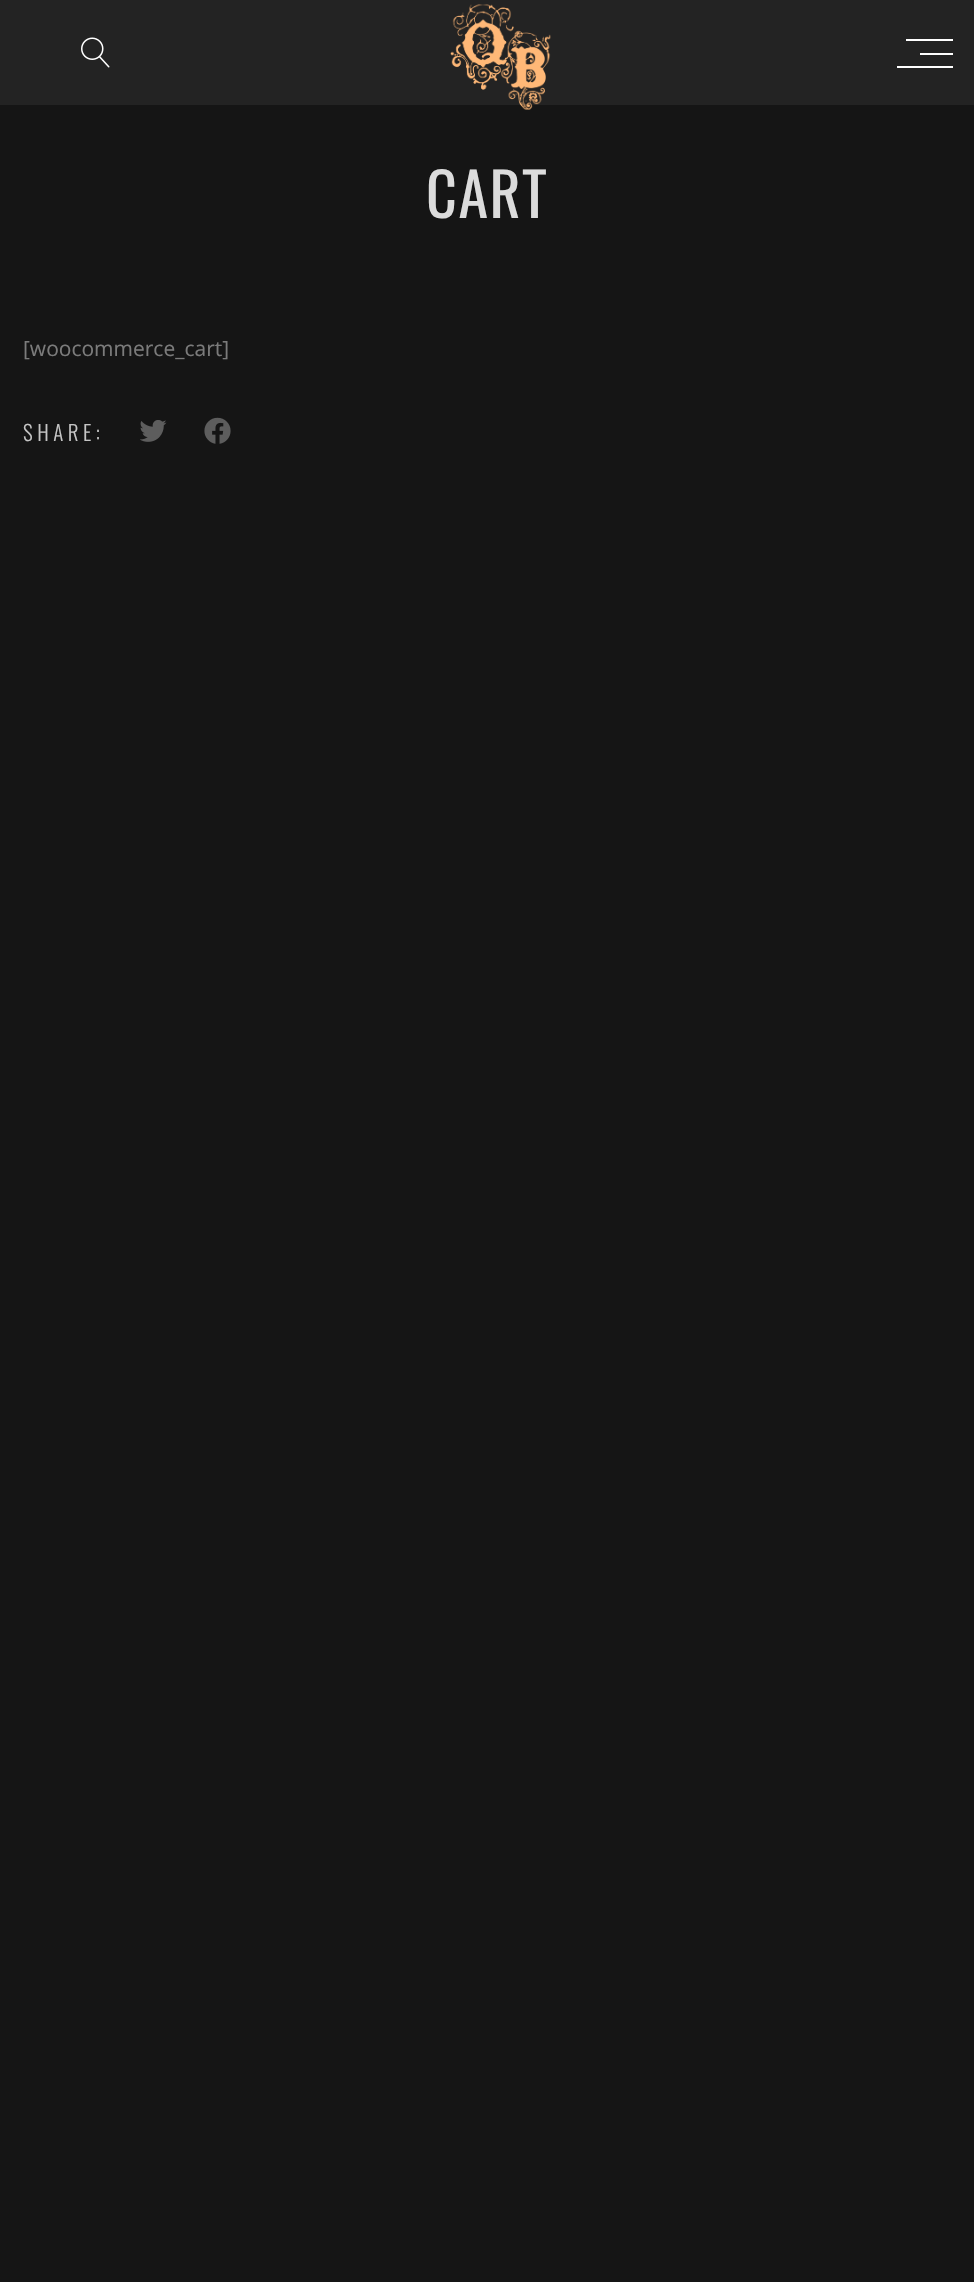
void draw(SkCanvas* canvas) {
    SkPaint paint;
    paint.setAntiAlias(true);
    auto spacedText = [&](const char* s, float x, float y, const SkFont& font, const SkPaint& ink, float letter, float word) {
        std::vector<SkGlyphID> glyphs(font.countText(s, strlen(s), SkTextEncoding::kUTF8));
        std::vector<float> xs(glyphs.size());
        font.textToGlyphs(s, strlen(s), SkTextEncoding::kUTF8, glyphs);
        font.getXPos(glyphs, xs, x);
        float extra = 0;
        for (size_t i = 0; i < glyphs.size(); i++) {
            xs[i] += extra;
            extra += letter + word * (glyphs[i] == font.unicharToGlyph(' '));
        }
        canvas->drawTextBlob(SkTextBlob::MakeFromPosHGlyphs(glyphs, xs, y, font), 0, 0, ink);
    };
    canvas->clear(0xFF151515);
    paint.setColor(0xFF232323);
    canvas->drawRect(SkRect::MakeXYWH(0, 0, 974, 105), paint);
    canvas->drawImageRect(SkImages::DeferredFromEncodedData(SkData::MakeFromFileName("img1.png")), SkRect::MakeXYWH(81, 37, 29, 31), SkSamplingOptions());
    canvas->drawImageRect(SkImages::DeferredFromEncodedData(SkData::MakeFromFileName("img2.png")), SkRect::MakeXYWH(450, 4, 101, 106), SkSamplingOptions());
    paint.setColor(0xFFFFFFFF);
    canvas->drawRect(SkRect::MakeXYWH(906, 39, 47, 2), paint);
    canvas->drawRect(SkRect::MakeXYWH(920, 53, 33, 2), paint);
    canvas->drawRect(SkRect::MakeXYWH(897, 66, 56, 2), paint);
    SkFont font1(fontMgr->matchFamilyStyle("Oswald", SkFontStyle::Normal()), 60);
    font1.setSubpixel(true);
    paint.setColor(0xFFDCDCDC);
    spacedText("CART", 426, 218, font1, paint, 1.5f, 0);
    SkFont font2(fontMgr->matchFamilyStyle("Open Sans", SkFontStyle::Normal()), 21);
    font2.setSubpixel(true);
    paint.setColor(0xFF7B7B7B);
    canvas->drawString("[woocommerce_cart]", 23, 356, font2, paint);
    SkFont font3(fontMgr->matchFamilyStyle("Oswald", SkFontStyle(300, SkFontStyle::kNormal_Width, SkFontStyle::kUpright_Slant)), 21);
    font3.setSubpixel(true);
    paint.setColor(0xFFC5C5C5);
    spacedText("SHARE:", 23, 441, font3, paint, 4.5f, 0);
    canvas->drawImageRect(SkImages::DeferredFromEncodedData(SkData::MakeFromFileName("img3.png")), SkRect::MakeXYWH(140, 420, 27, 22), SkSamplingOptions());
    canvas->drawImageRect(SkImages::DeferredFromEncodedData(SkData::MakeFromFileName("img4.png")), SkRect::MakeXYWH(204, 417, 27, 27), SkSamplingOptions());
}
